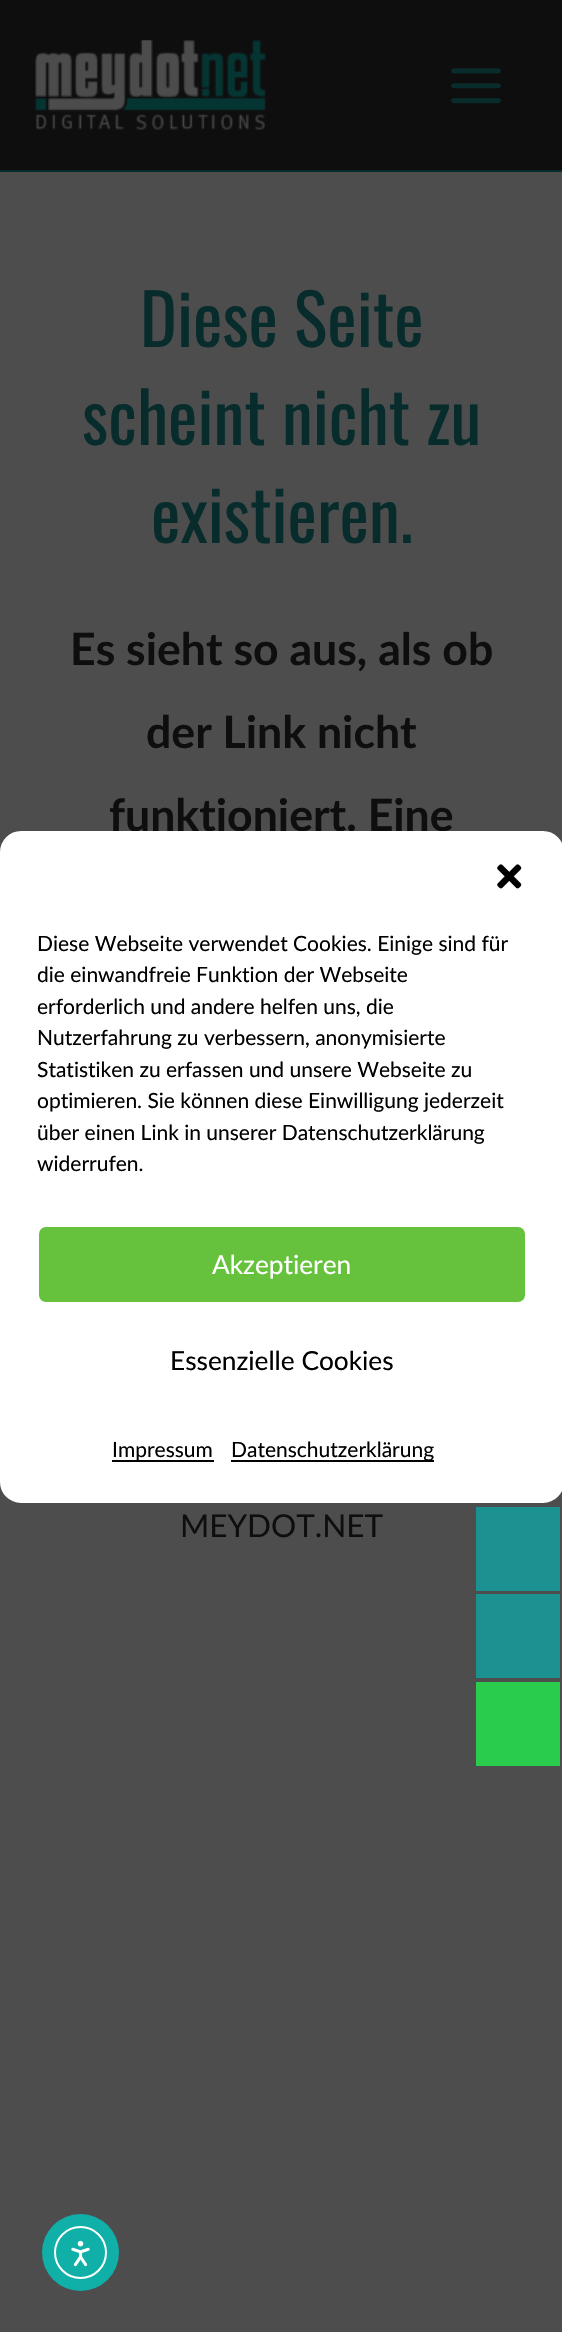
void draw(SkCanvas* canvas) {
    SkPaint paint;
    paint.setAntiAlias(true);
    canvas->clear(0xFF4D4D4D);
    paint.setColor(0xFF0E0E0E);
    canvas->drawRect(SkRect::MakeXYWH(0, 0, 562, 170), paint);
    paint.setColor(0xFF082C2C);
    canvas->drawRect(SkRect::MakeXYWH(0, 170, 562, 2), paint);
    canvas->drawImageRect(SkImages::DeferredFromEncodedData(SkData::MakeFromFileName("img1.png")), SkRect::MakeXYWH(35, 40, 231, 90), SkSamplingOptions());
    canvas->drawImageRect(SkImages::DeferredFromEncodedData(SkData::MakeFromFileName("img2.png")), SkRect::MakeXYWH(451, 68, 50, 36), SkSamplingOptions());
    SkFont font1(fontMgr->matchFamilyStyle("Oswald", SkFontStyle::Normal()), 70);
    font1.setSubpixel(true);
    canvas->drawString("Diese Seite", 140, 347, font1, paint);
    canvas->drawString("scheint nicht zu", 82, 445, font1, paint);
    canvas->drawString("existieren.", 151, 543, font1, paint);
    SkFont font2(fontMgr->matchFamilyStyle("Lato", SkFontStyle::Bold()), 44.6f);
    font2.setSubpixel(true);
    paint.setColor(0xFF0E0E0E);
    canvas->drawString("Es sieht so aus, als ob", 70, 665, font2, paint);
    canvas->drawString("der Link nicht", 146, 748, font2, paint);
    canvas->drawString("funktioniert. Eine", 109, 831, font2, paint);
    SkFont font3(fontMgr->matchFamilyStyle("Lato", SkFontStyle::Normal()), 31.5f);
    font3.setSubpixel(true);
    canvas->drawString("MEYDOT.NET", 180, 1537, font3, paint);
    paint.setColor(0xFFFFFFFF);
    canvas->drawRoundRect(SkRect::MakeXYWH(1, 832, 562, 670), 20, 20, paint);
    paint.setStyle(SkPaint::kStroke_Style);
    paint.setStrokeWidth(2);
    canvas->drawRoundRect(SkRect::MakeXYWH(1, 832, 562, 670), 20, 20, paint);
    canvas->drawImageRect(SkImages::DeferredFromEncodedData(SkData::MakeFromFileName("img3.png")), SkRect::MakeXYWH(497, 864, 25, 25), SkSamplingOptions());
    SkFont font4(fontMgr->matchFamilyStyle("Lato", SkFontStyle::Normal()), 21);
    font4.setSubpixel(true);
    paint.setStyle(SkPaint::kFill_Style);
    paint.setColor(0xFF000000);
    canvas->drawString("Diese Webseite verwendet Cookies. Einige sind für", 37, 951, font4, paint);
    canvas->drawString("die einwandfreie Funktion der Webseite", 37, 982, font4, paint);
    canvas->drawString("erforderlich und andere helfen uns, die", 37, 1014, font4, paint);
    canvas->drawString("Nutzerfahrung zu verbessern, anonymisierte", 37, 1045, font4, paint);
    canvas->drawString("Statistiken zu erfassen und unsere Webseite zu", 37, 1077, font4, paint);
    canvas->drawString("optimieren. Sie können diese Einwilligung jederzeit", 37, 1108, font4, paint);
    canvas->drawString("über einen Link in unserer Datenschutzerklärung", 37, 1140, font4, paint);
    canvas->drawString("widerrufen.", 37, 1171, font4, paint);
    paint.setColor(0xFF66C13C);
    canvas->drawRoundRect(SkRect::MakeXYWH(38, 1226, 488, 77), 8, 8, paint);
    paint.setStyle(SkPaint::kStroke_Style);
    paint.setColor(0xFFFFFFFF);
    canvas->drawRoundRect(SkRect::MakeXYWH(38, 1226, 488, 77), 8, 8, paint);
    SkFont font5(fontMgr->matchFamilyStyle("Lato", SkFontStyle::Normal()), 26.25f);
    font5.setSubpixel(true);
    paint.setStyle(SkPaint::kFill_Style);
    canvas->drawString("Akzeptieren", 212, 1274, font5, paint);
    paint.setColor(0xFF000000);
    canvas->drawString("Essenzielle Cookies", 170, 1370, font5, paint);
    canvas->drawRect(SkRect::MakeXYWH(112, 1460, 102, 2), paint);
    canvas->drawString("Impressum", 112, 1457, font4, paint);
    canvas->drawRect(SkRect::MakeXYWH(231, 1460, 203, 2), paint);
    canvas->drawString("Datenschutzerklärung", 231, 1457, font4, paint);
    paint.setColor(0xFF1C9191);
    canvas->drawRect(SkRect::MakeXYWH(476, 1507, 84, 84), paint);
    canvas->drawRect(SkRect::MakeXYWH(476, 1594, 84, 84), paint);
    paint.setColor(0xFF2ACC4D);
    canvas->drawRect(SkRect::MakeXYWH(476, 1682, 84, 84), paint);
    paint.setColor(0xFF10B0A9);
    canvas->drawCircle(80.5f, 2252.5f, 38.5f, paint);
    paint.setStyle(SkPaint::kStroke_Style);
    paint.setColor(0xFFFFFFFF);
    canvas->drawCircle(80.5f, 2252.5f, 25.5f, paint);
    canvas->drawImageRect(SkImages::DeferredFromEncodedData(SkData::MakeFromFileName("img4.png")), SkRect::MakeXYWH(71, 2240, 19, 27), SkSamplingOptions());
}
